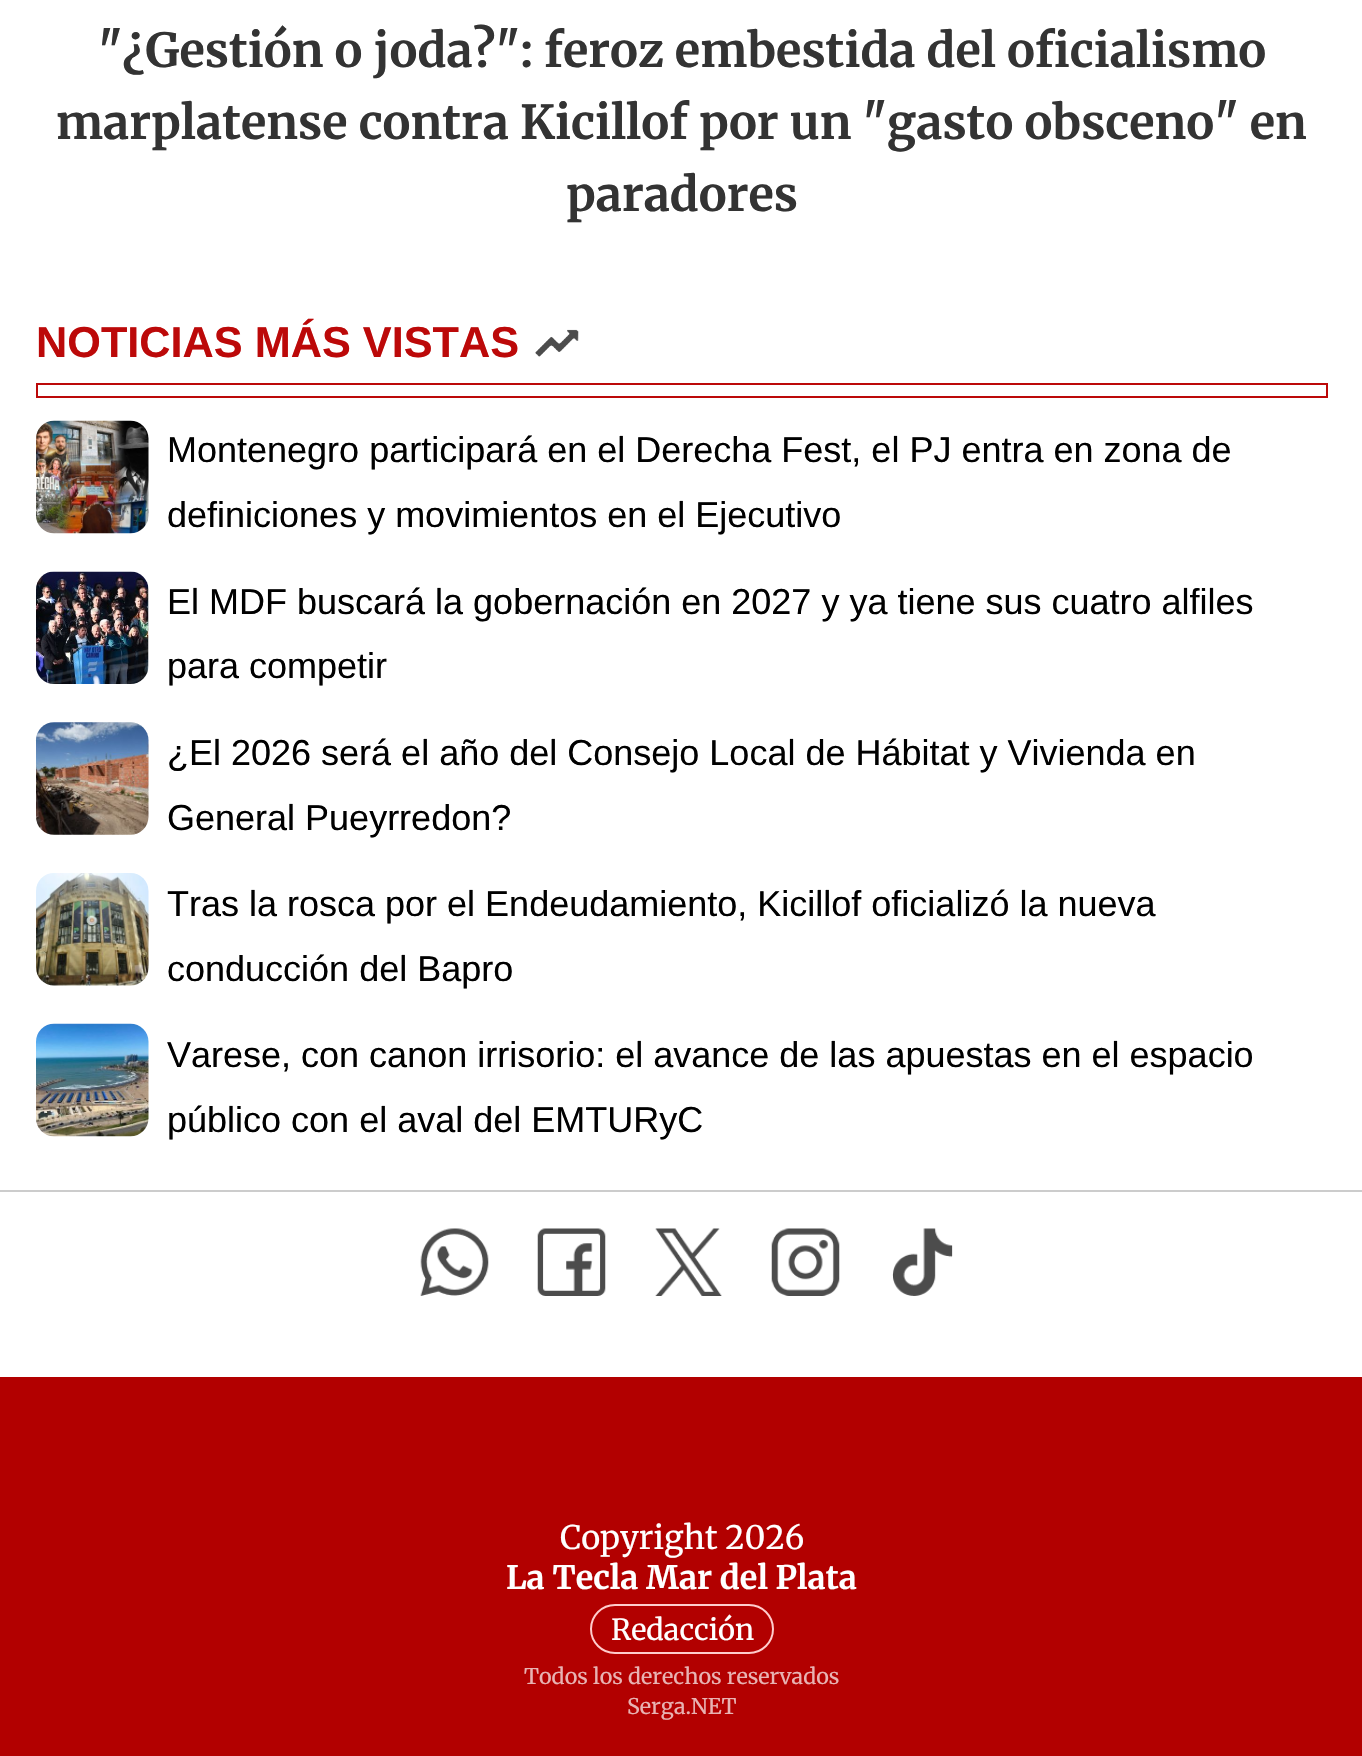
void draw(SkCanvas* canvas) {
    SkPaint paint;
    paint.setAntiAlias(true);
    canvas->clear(0xFFFFFFFF);
    SkFont font1(fontMgr->matchFamilyStyle("Merriweather", SkFontStyle::Bold()), 46.8f);
    font1.setSubpixel(true);
    paint.setColor(0xFF333333);
    canvas->drawString("\"¿Gestión o joda?\": feroz embestida del oficialismo", 98, 67, font1, paint);
    canvas->drawString("marplatense contra Kicillof por un \"gasto obsceno\" en", 56, 139, font1, paint);
    canvas->drawString("paradores", 566, 211, font1, paint);
    SkFont font2(fontMgr->matchFamilyStyle("Liberation Sans", SkFontStyle::Bold()), 43.25f);
    font2.setSubpixel(true);
    paint.setColor(0xFFBC0909);
    canvas->drawString("NOTICIAS MÁS VISTAS", 36, 357, font2, paint);
    canvas->drawImageRect(SkImages::DeferredFromEncodedData(SkData::MakeFromFileName("img1.png")), SkRect::MakeXYWH(535, 329, 44, 28), SkSamplingOptions());
    paint.setStyle(SkPaint::kStroke_Style);
    paint.setStrokeWidth(2);
    canvas->drawRect(SkRect::MakeXYWH(37, 384, 1290, 13), paint);
    canvas->drawImageRect(SkImages::DeferredFromEncodedData(SkData::MakeFromFileName("img2.png")), SkRect::MakeXYWH(36, 420, 113, 114), SkSamplingOptions());
    SkFont font3(fontMgr->matchFamilyStyle("Liberation Sans", SkFontStyle::Normal()), 36);
    font3.setSubpixel(true);
    paint.setStyle(SkPaint::kFill_Style);
    paint.setColor(0xFF000000);
    canvas->drawString("Montenegro participará en el Derecha Fest, el PJ entra en zona de", 167, 462, font3, paint);
    canvas->drawString("definiciones y movimientos en el Ejecutivo", 167, 527, font3, paint);
    canvas->drawImageRect(SkImages::DeferredFromEncodedData(SkData::MakeFromFileName("img3.png")), SkRect::MakeXYWH(36, 571, 113, 113), SkSamplingOptions());
    canvas->drawString("El MDF buscará la gobernación en 2027 y ya tiene sus cuatro alfiles", 167, 614, font3, paint);
    canvas->drawString("para competir", 167, 678, font3, paint);
    canvas->drawImageRect(SkImages::DeferredFromEncodedData(SkData::MakeFromFileName("img4.png")), SkRect::MakeXYWH(35, 722, 114, 113), SkSamplingOptions());
    canvas->drawString("¿El 2026 será el año del Consejo Local de Hábitat y Vivienda en", 167, 765, font3, paint);
    canvas->drawString("General Pueyrredon?", 167, 830, font3, paint);
    canvas->drawImageRect(SkImages::DeferredFromEncodedData(SkData::MakeFromFileName("img5.png")), SkRect::MakeXYWH(36, 873, 113, 113), SkSamplingOptions());
    canvas->drawString("Tras la rosca por el Endeudamiento, Kicillof oficializó la nueva", 167, 916, font3, paint);
    canvas->drawString("conducción del Bapro", 167, 981, font3, paint);
    canvas->drawImageRect(SkImages::DeferredFromEncodedData(SkData::MakeFromFileName("img6.png")), SkRect::MakeXYWH(36, 1023, 113, 114), SkSamplingOptions());
    canvas->drawString("Varese, con canon irrisorio: el avance de las apuestas en el espacio", 167, 1067, font3, paint);
    canvas->drawString("público con el aval del EMTURyC", 167, 1132, font3, paint);
    paint.setColor(0xFFCCCCCC);
    canvas->drawRect(SkRect::MakeXYWH(0, 1190, 1362, 2), paint);
    canvas->drawImageRect(SkImages::DeferredFromEncodedData(SkData::MakeFromFileName("img7.png")), SkRect::MakeXYWH(420, 1228, 69, 68), SkSamplingOptions());
    canvas->drawImageRect(SkImages::DeferredFromEncodedData(SkData::MakeFromFileName("img8.png")), SkRect::MakeXYWH(537, 1228, 69, 68), SkSamplingOptions());
    canvas->drawImageRect(SkImages::DeferredFromEncodedData(SkData::MakeFromFileName("img9.png")), SkRect::MakeXYWH(655, 1228, 67, 68), SkSamplingOptions());
    canvas->drawImageRect(SkImages::DeferredFromEncodedData(SkData::MakeFromFileName("img10.png")), SkRect::MakeXYWH(771, 1228, 69, 68), SkSamplingOptions());
    canvas->drawImageRect(SkImages::DeferredFromEncodedData(SkData::MakeFromFileName("img11.png")), SkRect::MakeXYWH(892, 1228, 61, 68), SkSamplingOptions());
    paint.setColor(0xFFB20000);
    canvas->drawRect(SkRect::MakeXYWH(0, 1377, 1362, 379), paint);
    SkFont font4(fontMgr->matchFamilyStyle("Merriweather", SkFontStyle::Normal()), 32.4f);
    font4.setSubpixel(true);
    paint.setColor(0xFFFFFFFF);
    canvas->drawString("Copyright 2026", 560, 1549, font4, paint);
    SkFont font5(fontMgr->matchFamilyStyle("Merriweather", SkFontStyle::Bold()), 32.4f);
    font5.setSubpixel(true);
    canvas->drawString("La Tecla Mar del Plata", 506, 1589, font5, paint);
    paint.setStyle(SkPaint::kStroke_Style);
    paint.setColor(0xFFFFCCCC);
    canvas->drawRoundRect(SkRect::MakeXYWH(591, 1605, 182, 48), 24, 24, paint);
    SkFont font6(fontMgr->matchFamilyStyle("Merriweather", SkFontStyle::Normal()), 29);
    font6.setSubpixel(true);
    paint.setStyle(SkPaint::kFill_Style);
    paint.setColor(0xFFFFFFFF);
    canvas->drawString("Redacción", 611, 1640, font6, paint);
    SkFont font7(fontMgr->matchFamilyStyle("Merriweather", SkFontStyle::Normal()), 21.6f);
    font7.setSubpixel(true);
    paint.setColor(0xFFE8B3B3);
    canvas->drawString("Todos los derechos reservados", 524, 1684, font7, paint);
    canvas->drawString("Serga.NET", 627, 1714, font7, paint);
}
